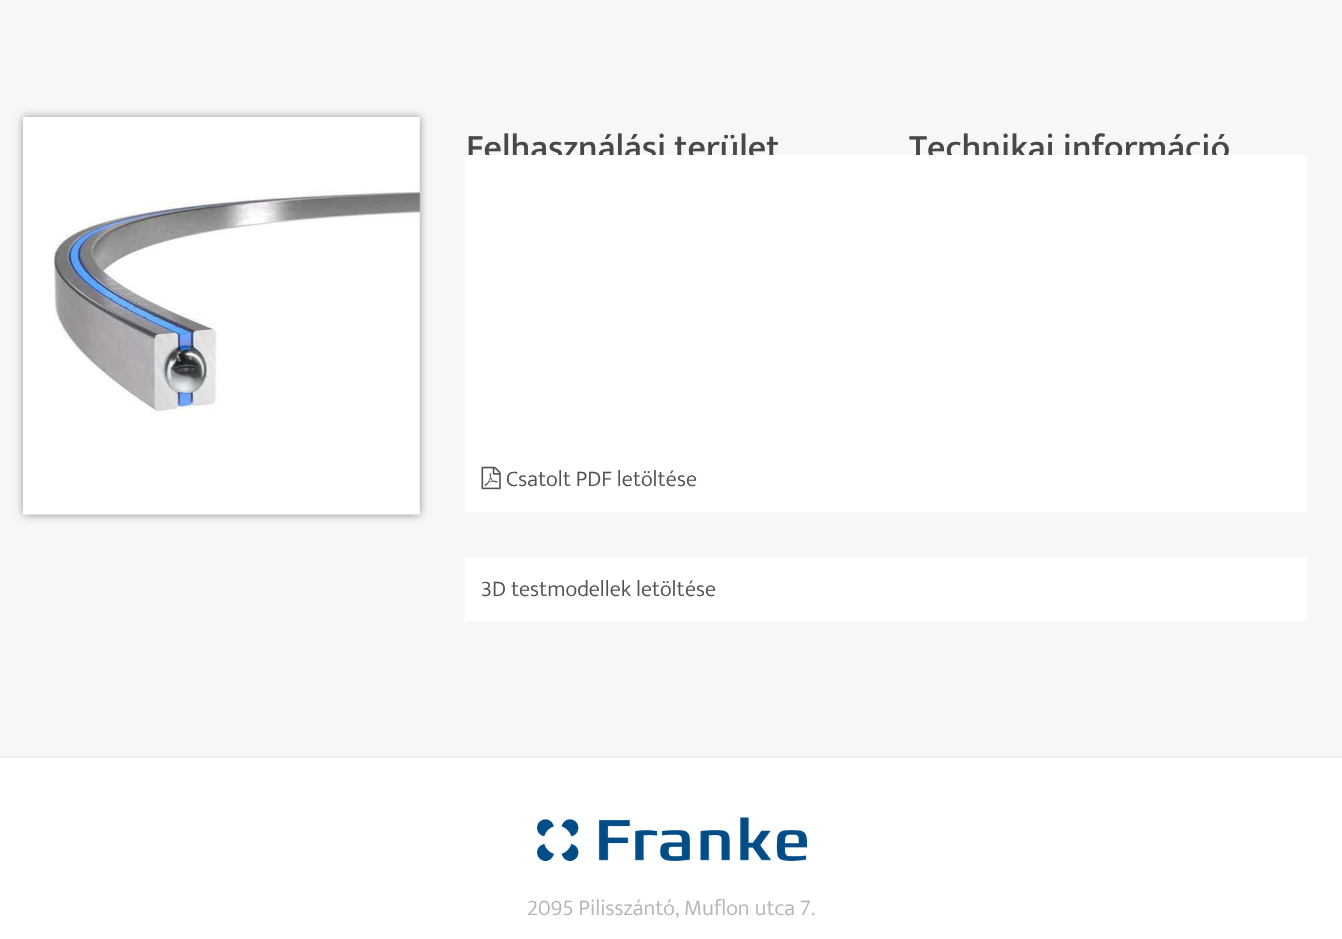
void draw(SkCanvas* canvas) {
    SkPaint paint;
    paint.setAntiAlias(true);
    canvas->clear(0xFFFFFFFF);
    paint.setColor(0xFFF7F7F7);
    canvas->drawRect(SkRect::MakeXYWH(0, 0, 1342, 756), paint);
    paint.setColor(0x66000000);
    paint.setMaskFilter(SkMaskFilter::MakeBlur(kNormal_SkBlurStyle, 4));
    canvas->drawRect(SkRect::MakeXYWH(23, 117, 397, 398), paint);
    paint.setMaskFilter(nullptr);
    canvas->drawImageRect(SkImages::DeferredFromEncodedData(SkData::MakeFromFileName("img1.png")), SkRect::MakeXYWH(23, 117, 397, 398), SkSamplingOptions());
    SkFont font1(fontMgr->matchFamilyStyle("Mukta Vaani", SkFontStyle(500, SkFontStyle::kNormal_Width, SkFontStyle::kUpright_Slant)), 36);
    font1.setSubpixel(true);
    paint.setColor(0xFF484848);
    canvas->drawString("Felhasználási terület", 466, 159, font1, paint);
    canvas->drawString("Technikai információ", 909, 159, font1, paint);
    paint.setColor(0xFFFFFFFF);
    canvas->drawRect(SkRect::MakeXYWH(465, 155, 842, 357), paint);
    canvas->drawImageRect(SkImages::DeferredFromEncodedData(SkData::MakeFromFileName("img2.png")), SkRect::MakeXYWH(481, 466, 20, 24), SkSamplingOptions());
    SkFont font2(fontMgr->matchFamilyStyle("Mukta Vaani", SkFontStyle(300, SkFontStyle::kNormal_Width, SkFontStyle::kUpright_Slant)), 22.5f);
    font2.setSubpixel(true);
    paint.setColor(0xFF525252);
    canvas->drawString("Csatolt PDF letöltése", 506, 486, font2, paint);
    paint.setColor(0xFFFFFFFF);
    canvas->drawRect(SkRect::MakeXYWH(465, 557, 842, 64), paint);
    paint.setColor(0xFF525252);
    canvas->drawString("3D testmodellek letöltése", 481, 596, font2, paint);
    paint.setColor(0xFFEEEEEE);
    canvas->drawRect(SkRect::MakeXYWH(0, 756, 1342, 2), paint);
    canvas->drawImageRect(SkImages::DeferredFromEncodedData(SkData::MakeFromFileName("img3.png")), SkRect::MakeXYWH(537, 817, 270, 44), SkSamplingOptions());
    paint.setColor(0xFFB5B5B5);
    canvas->drawString("2095 Pilisszántó, Muflon utca 7.", 527, 915, font2, paint);
}
